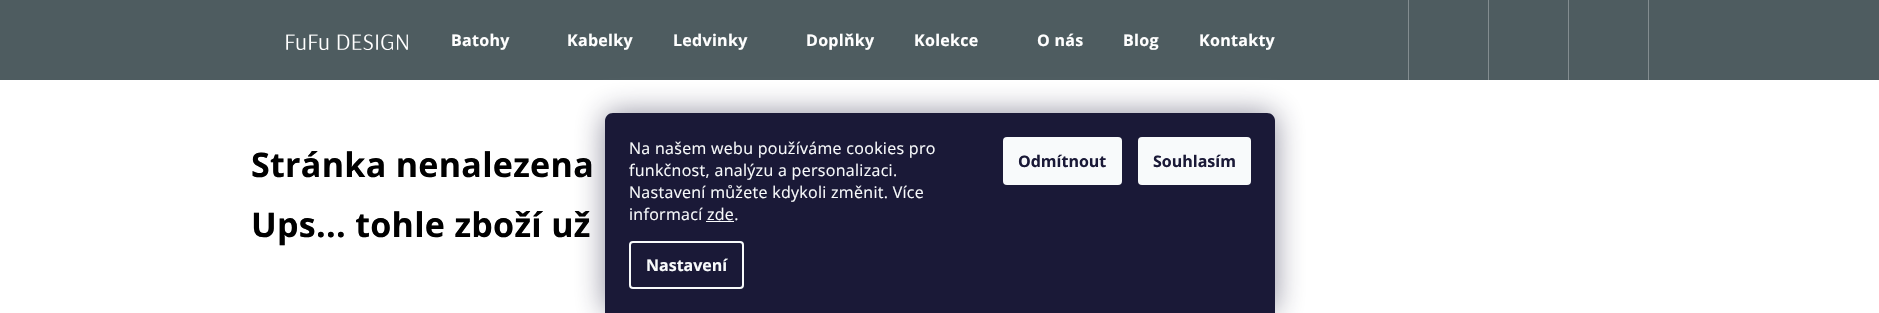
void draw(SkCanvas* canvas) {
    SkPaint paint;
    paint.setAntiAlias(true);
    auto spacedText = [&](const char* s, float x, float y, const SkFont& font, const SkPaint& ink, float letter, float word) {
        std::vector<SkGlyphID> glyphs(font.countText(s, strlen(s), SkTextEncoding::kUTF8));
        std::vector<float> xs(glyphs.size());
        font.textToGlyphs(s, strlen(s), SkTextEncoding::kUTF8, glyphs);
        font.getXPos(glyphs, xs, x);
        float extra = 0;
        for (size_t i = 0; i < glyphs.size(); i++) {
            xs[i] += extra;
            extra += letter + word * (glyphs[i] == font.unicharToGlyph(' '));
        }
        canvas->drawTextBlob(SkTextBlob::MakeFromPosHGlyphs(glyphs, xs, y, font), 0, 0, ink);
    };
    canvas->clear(0xFFFFFFFF);
    paint.setColor(0xFF4E5C60);
    canvas->drawRect(SkRect::MakeXYWH(0, 0, 1879, 80), paint);
    canvas->drawImageRect(SkImages::DeferredFromEncodedData(SkData::MakeFromFileName("img1.png")), SkRect::MakeXYWH(286, 34, 122, 17), SkSamplingOptions());
    SkFont font1(fontMgr->matchFamilyStyle("Open Sans", SkFontStyle::Bold()), 16);
    font1.setSubpixel(true);
    paint.setColor(0xFFFFFFFF);
    spacedText("Batohy", 451, 46, font1, paint, 0.3f, 0);
    spacedText("Kabelky", 567, 46, font1, paint, 0.3f, 0);
    spacedText("Ledvinky", 673, 46, font1, paint, 0.3f, 0);
    spacedText("Doplňky", 806, 46, font1, paint, 0.3f, 0);
    spacedText("Kolekce", 914, 46, font1, paint, 0.3f, 0);
    spacedText("O nás", 1037, 46, font1, paint, 0.3f, 0);
    spacedText("Blog", 1123, 46, font1, paint, 0.3f, 0);
    spacedText("Kontakty", 1199, 46, font1, paint, 0.3f, 0);
    paint.setColor(0xFF838D90);
    canvas->drawRect(SkRect::MakeXYWH(1648, 0, 1, 80), paint);
    canvas->drawRect(SkRect::MakeXYWH(1408, 0, 1, 80), paint);
    canvas->drawRect(SkRect::MakeXYWH(1488, 0, 1, 80), paint);
    canvas->drawRect(SkRect::MakeXYWH(1568, 0, 1, 80), paint);
    SkFont font2(fontMgr->matchFamilyStyle("Open Sans", SkFontStyle::Bold()), 34);
    font2.setSubpixel(true);
    paint.setColor(0xFF000000);
    spacedText("Stránka nenalezena", 251, 177, font2, paint, 0.3f, 0);
    spacedText("Ups... tohle zboží už", 251, 237, font2, paint, 0.3f, 0);
    paint.setColor(0x801B1939);
    paint.setMaskFilter(SkMaskFilter::MakeBlur(kNormal_SkBlurStyle, 15));
    canvas->drawRoundRect(SkRect::MakeXYWH(605, 113, 670, 200), 8, 8, paint);
    paint.setMaskFilter(nullptr);
    paint.setColor(0xFF1A1937);
    canvas->drawPath(SkPathBuilder().moveTo(613, 113).lineTo(1267, 113).cubicTo(1271.5f, 113, 1275, 116.5f, 1275, 121).lineTo(1275, 313).lineTo(605, 313).lineTo(605, 121).cubicTo(605, 116.5f, 608.5f, 113, 613, 113).close().detach(), paint);
    SkFont font3(fontMgr->matchFamilyStyle("Open Sans", SkFontStyle::Normal()), 16);
    font3.setSubpixel(true);
    paint.setColor(0xFFF8FAFB);
    spacedText("Na našem webu používáme cookies pro", 629, 154, font3, paint, 0.3f, 0);
    spacedText("funkčnost, analýzu a personalizaci.", 629, 176, font3, paint, 0.3f, 0);
    spacedText("Nastavení můžete kdykoli změnit. Více", 629, 198, font3, paint, 0.3f, 0);
    spacedText("informací zde.", 629, 220, font3, paint, 0.3f, 0);
    canvas->drawRect(SkRect::MakeXYWH(706, 221, 28, 1), paint);
    paint.setStyle(SkPaint::kStroke_Style);
    paint.setStrokeWidth(2);
    canvas->drawRoundRect(SkRect::MakeXYWH(630, 242, 113, 46), 3, 3, paint);
    paint.setStyle(SkPaint::kFill_Style);
    canvas->drawString("Nastavení", 646, 271, font1, paint);
    canvas->drawRoundRect(SkRect::MakeXYWH(1003, 137, 119, 48), 4, 4, paint);
    paint.setColor(0xFF1A1937);
    canvas->drawString("Odmítnout", 1018, 167, font1, paint);
    paint.setColor(0xFFF8FAFB);
    canvas->drawRoundRect(SkRect::MakeXYWH(1138, 137, 113, 48), 4, 4, paint);
    paint.setColor(0xFF1A1937);
    canvas->drawString("Souhlasím", 1153, 167, font1, paint);
}
